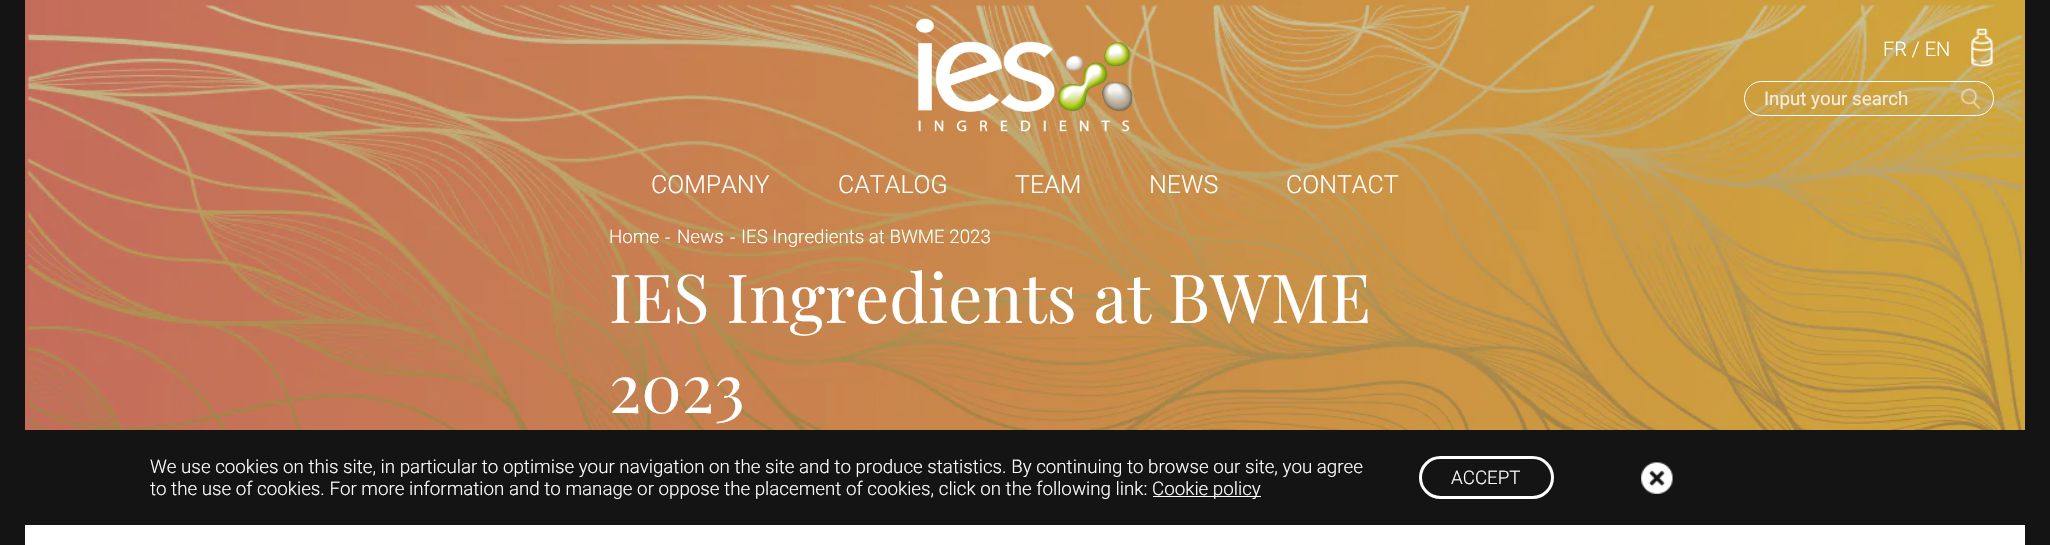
void draw(SkCanvas* canvas) {
    SkPaint paint;
    paint.setAntiAlias(true);
    canvas->clear(0xFF141414);
    paint.setColor(0xFFFFFFFF);
    canvas->drawRect(SkRect::MakeXYWH(25, 525, 2000, 20), paint);
    canvas->drawImageRect(SkImages::DeferredFromEncodedData(SkData::MakeFromFileName("img4.png")), SkRect::MakeXYWH(25, 0, 2000, 430), SkSamplingOptions());
    canvas->drawImageRect(SkImages::DeferredFromEncodedData(SkData::MakeFromFileName("img1.png")), SkRect::MakeXYWH(916, 18, 217, 114), SkSamplingOptions());
    SkFont font1(fontMgr->matchFamilyStyle("Roboto", SkFontStyle(300, SkFontStyle::kNormal_Width, SkFontStyle::kUpright_Slant)), 20);
    font1.setSubpixel(true);
    canvas->drawString("FR / EN", 1883, 56, font1, paint);
    canvas->drawImageRect(SkImages::DeferredFromEncodedData(SkData::MakeFromFileName("img2.png")), SkRect::MakeXYWH(1971, 28, 22, 39), SkSamplingOptions());
    paint.setStyle(SkPaint::kStroke_Style);
    paint.setStrokeWidth(1);
    canvas->drawRoundRect(SkRect::MakeXYWH(1744.5f, 81.5f, 249, 34), 17, 17, paint);
    SkFont font2(fontMgr->matchFamilyStyle("Roboto", SkFontStyle::Normal()), 18.75f);
    font2.setSubpixel(true);
    paint.setStyle(SkPaint::kFill_Style);
    paint.setColor(0xFFF5EDDB);
    canvas->drawString("Input your search", 1764, 105, font2, paint);
    canvas->drawImageRect(SkImages::DeferredFromEncodedData(SkData::MakeFromFileName("img3.png")), SkRect::MakeXYWH(1961, 88, 20, 21), SkSamplingOptions());
    SkFont font3(fontMgr->matchFamilyStyle("Roboto", SkFontStyle(300, SkFontStyle::kNormal_Width, SkFontStyle::kUpright_Slant)), 25);
    font3.setSubpixel(true);
    paint.setColor(0xFFFFFFFF);
    canvas->drawString("COMPANY", 651, 193, font3, paint);
    canvas->drawString("CATALOG", 838, 193, font3, paint);
    canvas->drawString("TEAM", 1015, 193, font3, paint);
    canvas->drawString("NEWS", 1149, 193, font3, paint);
    canvas->drawString("CONTACT", 1286, 193, font3, paint);
    SkFont font4(fontMgr->matchFamilyStyle("Roboto", SkFontStyle(300, SkFontStyle::kNormal_Width, SkFontStyle::kUpright_Slant)), 18.75f);
    font4.setSubpixel(true);
    canvas->drawString("Home", 609, 243, font4, paint);
    canvas->drawString("-", 665, 244, font4, paint);
    canvas->drawString("News", 677, 243, font4, paint);
    canvas->drawString("-", 730, 244, font4, paint);
    canvas->drawString("IES Ingredients at BWME 2023", 741, 243, font4, paint);
    SkFont font5(fontMgr->matchFamilyStyle("Playfair Display", SkFontStyle::Normal()), 67.5f);
    font5.setSubpixel(true);
    canvas->drawString("IES Ingredients at BWME", 609, 323, font5, paint);
    canvas->drawString("2023", 609, 413, font5, paint);
    canvas->drawString("We use cookies on this site, in particular to optimise your navigation on the site and to produce statistics. By continuing to browse our site, you agree", 150, 473, font4, paint);
    canvas->drawString("to the use of cookies. For more information and to manage or oppose the placement of cookies, click on the following link:", 150, 495, font4, paint);
    canvas->drawRect(SkRect::MakeXYWH(1153, 496, 108, 1), paint);
    canvas->drawString("Cookie policy", 1152, 495, font4, paint);
    paint.setStyle(SkPaint::kStroke_Style);
    paint.setStrokeWidth(3);
    canvas->drawRoundRect(SkRect::MakeXYWH(1420.5f, 457.5f, 132, 40), 20, 20, paint);
    paint.setStyle(SkPaint::kFill_Style);
    canvas->drawString("ACCEPT", 1451, 484, font4, paint);
    canvas->drawImageRect(SkImages::DeferredFromEncodedData(SkData::MakeFromFileName("img5.png")), SkRect::MakeXYWH(1641, 462, 32, 32), SkSamplingOptions());
}
